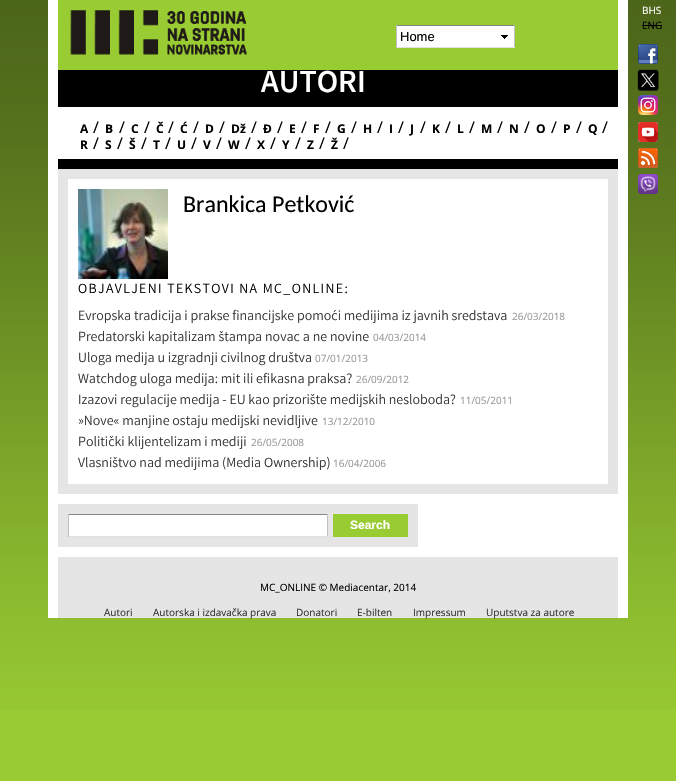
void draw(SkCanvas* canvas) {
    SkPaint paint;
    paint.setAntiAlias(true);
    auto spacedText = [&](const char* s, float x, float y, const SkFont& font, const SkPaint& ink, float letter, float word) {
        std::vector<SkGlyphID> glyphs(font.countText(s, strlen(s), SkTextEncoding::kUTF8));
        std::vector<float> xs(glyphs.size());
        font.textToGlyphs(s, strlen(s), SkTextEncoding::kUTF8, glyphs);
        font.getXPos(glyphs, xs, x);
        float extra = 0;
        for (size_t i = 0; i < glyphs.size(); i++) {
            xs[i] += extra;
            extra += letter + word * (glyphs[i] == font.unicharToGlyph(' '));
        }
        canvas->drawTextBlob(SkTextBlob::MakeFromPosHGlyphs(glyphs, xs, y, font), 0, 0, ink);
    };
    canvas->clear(0xFF99CC33);
    canvas->drawImageRect(SkImages::DeferredFromEncodedData(SkData::MakeFromFileName("img1.png")), SkRect::MakeXYWH(0, 0, 676, 710), SkSamplingOptions());
    paint.setColor(0xFFFFFFFF);
    canvas->drawRect(SkRect::MakeXYWH(48, 0, 580, 618), paint);
    paint.setColor(0xFF99CC33);
    canvas->drawRect(SkRect::MakeXYWH(58, 0, 560, 70), paint);
    canvas->drawImageRect(SkImages::DeferredFromEncodedData(SkData::MakeFromFileName("img2.png")), SkRect::MakeXYWH(70, 10, 177, 45), SkSamplingOptions());
    paint.setColor(0xFFFFFFFF);
    canvas->drawRect(SkRect::MakeXYWH(397, 26, 117, 21), paint);
    canvas->drawImageRect(SkImages::DeferredFromEncodedData(SkData::MakeFromFileName("img3.png")), SkRect::MakeXYWH(501, 35, 7, 4), SkSamplingOptions());
    paint.setColor(0xFF848484);
    canvas->drawRect(SkRect::MakeXYWH(396, 25, 119, 1), paint);
    paint.setColor(0xFFC1C1C1);
    canvas->drawRect(SkRect::MakeXYWH(514, 25, 1, 23), paint);
    paint.setColor(0xFFE1E1E1);
    canvas->drawRect(SkRect::MakeXYWH(396, 47, 119, 1), paint);
    paint.setColor(0xFFC1C1C1);
    canvas->drawRect(SkRect::MakeXYWH(396, 25, 1, 23), paint);
    SkFont font1(fontMgr->matchFamilyStyle("Liberation Sans", SkFontStyle::Normal()), 13);
    font1.setSubpixel(true);
    paint.setColor(0xFF000000);
    canvas->drawString("Home", 400, 41, font1, paint);
    SkFont font2(fontMgr->matchFamilyStyle("Open Sans", SkFontStyle::Normal()), 10);
    font2.setSubpixel(true);
    paint.setColor(0xFFFFFFFF);
    canvas->drawString("BHS", 642, 14, font2, paint);
    paint.setColor(0xFF000000);
    canvas->drawString("ENG", 642, 29, font2, paint);
    canvas->drawRect(SkRect::MakeXYWH(642, 25, 20, 1), paint);
    canvas->drawImageRect(SkImages::DeferredFromEncodedData(SkData::MakeFromFileName("img4.png")), SkRect::MakeXYWH(638, 44, 20, 20), SkSamplingOptions());
    canvas->drawImageRect(SkImages::DeferredFromEncodedData(SkData::MakeFromFileName("img5.png")), SkRect::MakeXYWH(637, 69, 22, 22), SkSamplingOptions());
    canvas->drawImageRect(SkImages::DeferredFromEncodedData(SkData::MakeFromFileName("img6.png")), SkRect::MakeXYWH(638, 95, 20, 20), SkSamplingOptions());
    canvas->drawImageRect(SkImages::DeferredFromEncodedData(SkData::MakeFromFileName("img7.png")), SkRect::MakeXYWH(638, 122, 20, 20), SkSamplingOptions());
    canvas->drawImageRect(SkImages::DeferredFromEncodedData(SkData::MakeFromFileName("img8.png")), SkRect::MakeXYWH(638, 148, 20, 20), SkSamplingOptions());
    canvas->drawImageRect(SkImages::DeferredFromEncodedData(SkData::MakeFromFileName("img9.png")), SkRect::MakeXYWH(638, 174, 20, 20), SkSamplingOptions());
    canvas->drawRect(SkRect::MakeXYWH(58, 70, 560, 37), paint);
    SkFont font3(fontMgr->matchFamilyStyle("Varta", SkFontStyle::Bold()), 32);
    font3.setSubpixel(true);
    paint.setColor(0xFFFFFFFF);
    canvas->drawString("AUTORI", 261, 92, font3, paint);
    paint.setColor(0xFF000000);
    canvas->drawRect(SkRect::MakeXYWH(58, 159, 560, 10), paint);
    SkFont font4(fontMgr->matchFamilyStyle("Open Sans", SkFontStyle::Bold()), 12);
    font4.setSubpixel(true);
    canvas->drawString("A", 80, 133, font4, paint);
    SkFont font5(fontMgr->matchFamilyStyle("Open Sans", SkFontStyle::Normal()), 16);
    font5.setSubpixel(true);
    canvas->drawString("/", 93, 133, font5, paint);
    canvas->drawString("B", 105, 133, font4, paint);
    canvas->drawString("/", 119, 133, font5, paint);
    canvas->drawString("C", 131, 133, font4, paint);
    canvas->drawString("/", 144, 133, font5, paint);
    canvas->drawString("Č", 156, 133, font4, paint);
    canvas->drawString("/", 168, 133, font5, paint);
    canvas->drawString("Ć", 180, 133, font4, paint);
    canvas->drawString("/", 193, 133, font5, paint);
    canvas->drawString("D", 205, 133, font4, paint);
    canvas->drawString("/", 219, 133, font5, paint);
    canvas->drawString("Dž", 231, 133, font4, paint);
    canvas->drawString("/", 251, 133, font5, paint);
    canvas->drawString("Đ", 263, 133, font4, paint);
    canvas->drawString("/", 277, 133, font5, paint);
    canvas->drawString("E", 289, 133, font4, paint);
    canvas->drawString("/", 301, 133, font5, paint);
    canvas->drawString("F", 313, 133, font4, paint);
    canvas->drawString("/", 325, 133, font5, paint);
    canvas->drawString("G", 337, 133, font4, paint);
    canvas->drawString("/", 351, 133, font5, paint);
    canvas->drawString("H", 363, 133, font4, paint);
    canvas->drawString("/", 377, 133, font5, paint);
    canvas->drawString("I", 389, 133, font4, paint);
    canvas->drawString("/", 398, 133, font5, paint);
    canvas->drawString("J", 410, 133, font4, paint);
    canvas->drawString("/", 420, 133, font5, paint);
    canvas->drawString("K", 432, 133, font4, paint);
    canvas->drawString("/", 445, 133, font5, paint);
    canvas->drawString("L", 457, 133, font4, paint);
    canvas->drawString("/", 469, 133, font5, paint);
    canvas->drawString("M", 481, 133, font4, paint);
    canvas->drawString("/", 497, 133, font5, paint);
    canvas->drawString("N", 509, 133, font4, paint);
    canvas->drawString("/", 524, 133, font5, paint);
    canvas->drawString("O", 536, 133, font4, paint);
    canvas->drawString("/", 551, 133, font5, paint);
    canvas->drawString("P", 563, 133, font4, paint);
    canvas->drawString("/", 576, 133, font5, paint);
    canvas->drawString("Q", 588, 133, font4, paint);
    canvas->drawString("/", 602, 133, font5, paint);
    canvas->drawString("R", 80, 149, font4, paint);
    canvas->drawString("/", 93, 149, font5, paint);
    canvas->drawString("S", 105, 149, font4, paint);
    canvas->drawString("/", 117, 149, font5, paint);
    canvas->drawString("Š", 129, 149, font4, paint);
    canvas->drawString("/", 141, 149, font5, paint);
    canvas->drawString("T", 153, 149, font4, paint);
    canvas->drawString("/", 165, 149, font5, paint);
    canvas->drawString("U", 177, 149, font4, paint);
    canvas->drawString("/", 191, 149, font5, paint);
    canvas->drawString("V", 203, 149, font4, paint);
    canvas->drawString("/", 216, 149, font5, paint);
    canvas->drawString("W", 228, 149, font4, paint);
    canvas->drawString("/", 245, 149, font5, paint);
    canvas->drawString("X", 257, 149, font4, paint);
    canvas->drawString("/", 270, 149, font5, paint);
    canvas->drawString("Y", 282, 149, font4, paint);
    canvas->drawString("/", 295, 149, font5, paint);
    canvas->drawString("Z", 307, 149, font4, paint);
    canvas->drawString("/", 319, 149, font5, paint);
    canvas->drawString("Ž", 331, 149, font4, paint);
    canvas->drawString("/", 343, 149, font5, paint);
    paint.setStyle(SkPaint::kStroke_Style);
    paint.setStrokeWidth(10);
    paint.setColor(0xFFE5E5E5);
    canvas->drawRect(SkRect::MakeXYWH(63, 174, 550, 315), paint);
    canvas->drawImageRect(SkImages::DeferredFromEncodedData(SkData::MakeFromFileName("img10.png")), SkRect::MakeXYWH(78, 189, 90, 90), SkSamplingOptions());
    SkFont font6(fontMgr->matchFamilyStyle("Carlito", SkFontStyle::Normal()), 24);
    font6.setSubpixel(true);
    paint.setStyle(SkPaint::kFill_Style);
    paint.setColor(0xFF000000);
    canvas->drawString("Brankica Petković", 183, 212, font6, paint);
    SkFont font7(fontMgr->matchFamilyStyle("Varta", SkFontStyle(300, SkFontStyle::kNormal_Width, SkFontStyle::kUpright_Slant)), 14);
    font7.setSubpixel(true);
    spacedText("OBJAVLJENI TEKSTOVI NA MC_ONLINE:", 78, 293, font7, paint, 1.4f, 0);
    paint.setColor(0xFF333333);
    canvas->drawString("Evropska tradicija i prakse financijske pomoći medijima iz javnih sredstava", 78, 320, font7, paint);
    paint.setColor(0xFF999999);
    canvas->drawString("26/03/2018", 512, 320, font2, paint);
    paint.setColor(0xFF333333);
    canvas->drawString("Predatorski kapitalizam štampa novac a ne novine", 78, 341, font7, paint);
    paint.setColor(0xFF999999);
    canvas->drawString("04/03/2014", 373, 341, font2, paint);
    paint.setColor(0xFF333333);
    canvas->drawString("Uloga medija u izgradnji civilnog društva", 78, 362, font7, paint);
    paint.setColor(0xFF999999);
    canvas->drawString("07/01/2013", 315, 362, font2, paint);
    paint.setColor(0xFF333333);
    canvas->drawString("Watchdog uloga medija: mit ili efikasna praksa?", 78, 383, font7, paint);
    paint.setColor(0xFF999999);
    canvas->drawString("26/09/2012", 356, 383, font2, paint);
    paint.setColor(0xFF333333);
    canvas->drawString("Izazovi regulacije medija - EU kao prizorište medijskih nesloboda?", 78, 404, font7, paint);
    paint.setColor(0xFF999999);
    canvas->drawString("11/05/2011", 460, 404, font2, paint);
    paint.setColor(0xFF333333);
    canvas->drawString("»Nove« manjine ostaju medijski nevidljive", 78, 425, font7, paint);
    paint.setColor(0xFF999999);
    canvas->drawString("13/12/2010", 322, 425, font2, paint);
    paint.setColor(0xFF333333);
    canvas->drawString("Politički klijentelizam i mediji", 78, 446, font7, paint);
    paint.setColor(0xFF999999);
    canvas->drawString("26/05/2008", 251, 446, font2, paint);
    paint.setColor(0xFF333333);
    canvas->drawString("Vlasništvo nad medijima (Media Ownership)", 78, 467, font7, paint);
    paint.setColor(0xFF999999);
    canvas->drawString("16/04/2006", 333, 467, font2, paint);
    paint.setStyle(SkPaint::kStroke_Style);
    paint.setColor(0xFFE5E5E5);
    canvas->drawRect(SkRect::MakeXYWH(63, 509, 350, 33), paint);
    paint.setStyle(SkPaint::kFill_Style);
    canvas->drawRect(SkRect::MakeXYWH(328, 514, 5, 23), paint);
    paint.setColor(0xFF848484);
    canvas->drawRect(SkRect::MakeXYWH(68, 514, 260, 1), paint);
    paint.setColor(0xFFC1C1C1);
    canvas->drawRect(SkRect::MakeXYWH(327, 514, 1, 23), paint);
    paint.setColor(0xFFE1E1E1);
    canvas->drawRect(SkRect::MakeXYWH(68, 536, 260, 1), paint);
    paint.setColor(0xFFC1C1C1);
    canvas->drawRect(SkRect::MakeXYWH(68, 514, 1, 23), paint);
    paint.setColor(0xFF99CC33);
    canvas->drawRect(SkRect::MakeXYWH(333, 514, 75, 23), paint);
    SkFont font8(fontMgr->matchFamilyStyle("Liberation Sans", SkFontStyle::Bold()), 12);
    font8.setSubpixel(true);
    paint.setColor(0xFFFFFFFF);
    canvas->drawString("Search", 350, 529, font8, paint);
    paint.setColor(0xFFE5E5E5);
    canvas->drawRect(SkRect::MakeXYWH(58, 557, 560, 61), paint);
    paint.setColor(0xFF000000);
    canvas->drawString("MC_ONLINE © Mediacentar, 2014", 260, 591, font2, paint);
    paint.setColor(0xFF333333);
    canvas->drawString("Autori", 104, 616, font2, paint);
    canvas->drawString("Autorska i izdavačka prava", 153, 616, font2, paint);
    canvas->drawString("Donatori", 296, 616, font2, paint);
    canvas->drawString("E-bilten", 357, 616, font2, paint);
    canvas->drawString("Impressum", 413, 616, font2, paint);
    canvas->drawString("Uputstva za autore", 486, 616, font2, paint);
}
